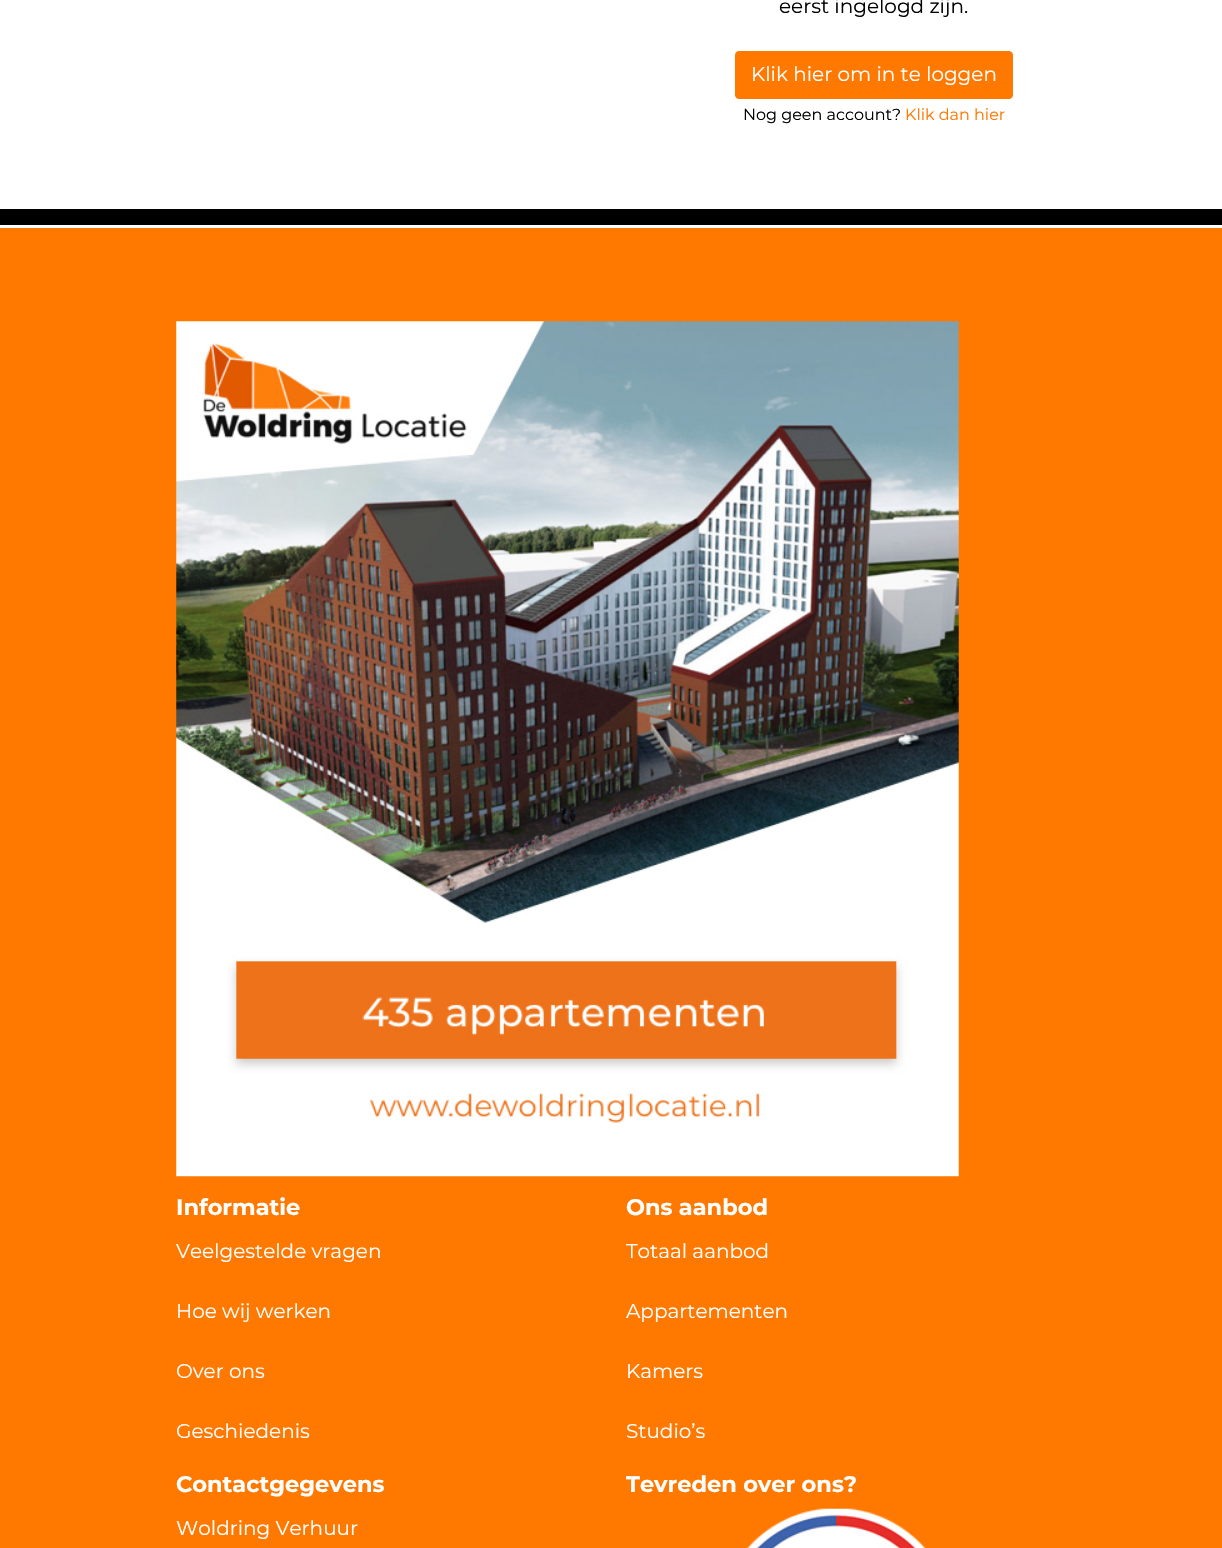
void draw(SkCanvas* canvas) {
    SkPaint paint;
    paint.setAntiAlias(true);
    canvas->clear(0xFFFFFFFF);
    SkFont font1(fontMgr->matchFamilyStyle("Montserrat", SkFontStyle::Normal()), 20);
    font1.setSubpixel(true);
    paint.setColor(0xFF000000);
    canvas->drawString("eerst ingelogd zijn.", 779, 13, font1, paint);
    paint.setColor(0xFFFF7800);
    canvas->drawRoundRect(SkRect::MakeXYWH(735.5f, 51.5f, 277, 47), 3.5f, 3.5f, paint);
    paint.setStyle(SkPaint::kStroke_Style);
    paint.setStrokeWidth(1);
    canvas->drawRoundRect(SkRect::MakeXYWH(735.5f, 51.5f, 277, 47), 3.5f, 3.5f, paint);
    paint.setStyle(SkPaint::kFill_Style);
    paint.setColor(0xFFFFFFFF);
    canvas->drawString("Klik hier om in te loggen", 751, 81, font1, paint);
    SkFont font2(fontMgr->matchFamilyStyle("Montserrat", SkFontStyle::Normal()), 16);
    font2.setSubpixel(true);
    paint.setColor(0xFF000000);
    canvas->drawString("Nog geen account?", 743, 120, font2, paint);
    paint.setColor(0xFFFF7800);
    canvas->drawString("Klik dan hier", 905, 120, font2, paint);
    paint.setColor(0xFF000000);
    canvas->drawRect(SkRect::MakeXYWH(0, 209, 1222, 16), paint);
    paint.setColor(0xFFFF7800);
    canvas->drawRect(SkRect::MakeXYWH(0, 228, 1222, 1320), paint);
    canvas->drawImageRect(SkImages::DeferredFromEncodedData(SkData::MakeFromFileName("img1.png")), SkRect::MakeXYWH(176, 321, 783, 856), SkSamplingOptions());
    SkFont font3(fontMgr->matchFamilyStyle("Montserrat", SkFontStyle::Bold()), 22.5f);
    font3.setSubpixel(true);
    paint.setColor(0xFFFFFFFF);
    canvas->drawString("Informatie", 176, 1215, font3, paint);
    canvas->drawString("Veelgestelde vragen", 176, 1258, font1, paint);
    canvas->drawString("Hoe wij werken", 176, 1318, font1, paint);
    canvas->drawString("Over ons", 176, 1378, font1, paint);
    canvas->drawString("Geschiedenis", 176, 1438, font1, paint);
    canvas->drawString("Ons aanbod", 626, 1215, font3, paint);
    canvas->drawString("Totaal aanbod", 626, 1258, font1, paint);
    canvas->drawString("Appartementen", 626, 1318, font1, paint);
    canvas->drawString("Kamers", 626, 1378, font1, paint);
    canvas->drawString("Studio’s", 626, 1438, font1, paint);
    canvas->drawString("Contactgegevens", 176, 1492, font3, paint);
    canvas->drawString("Woldring Verhuur", 176, 1535, font1, paint);
    canvas->drawString("Tevreden over ons?", 626, 1492, font3, paint);
    canvas->drawImageRect(SkImages::DeferredFromEncodedData(SkData::MakeFromFileName("img2.png")), SkRect::MakeXYWH(746, 1508, 180, 40), SkSamplingOptions());
}
